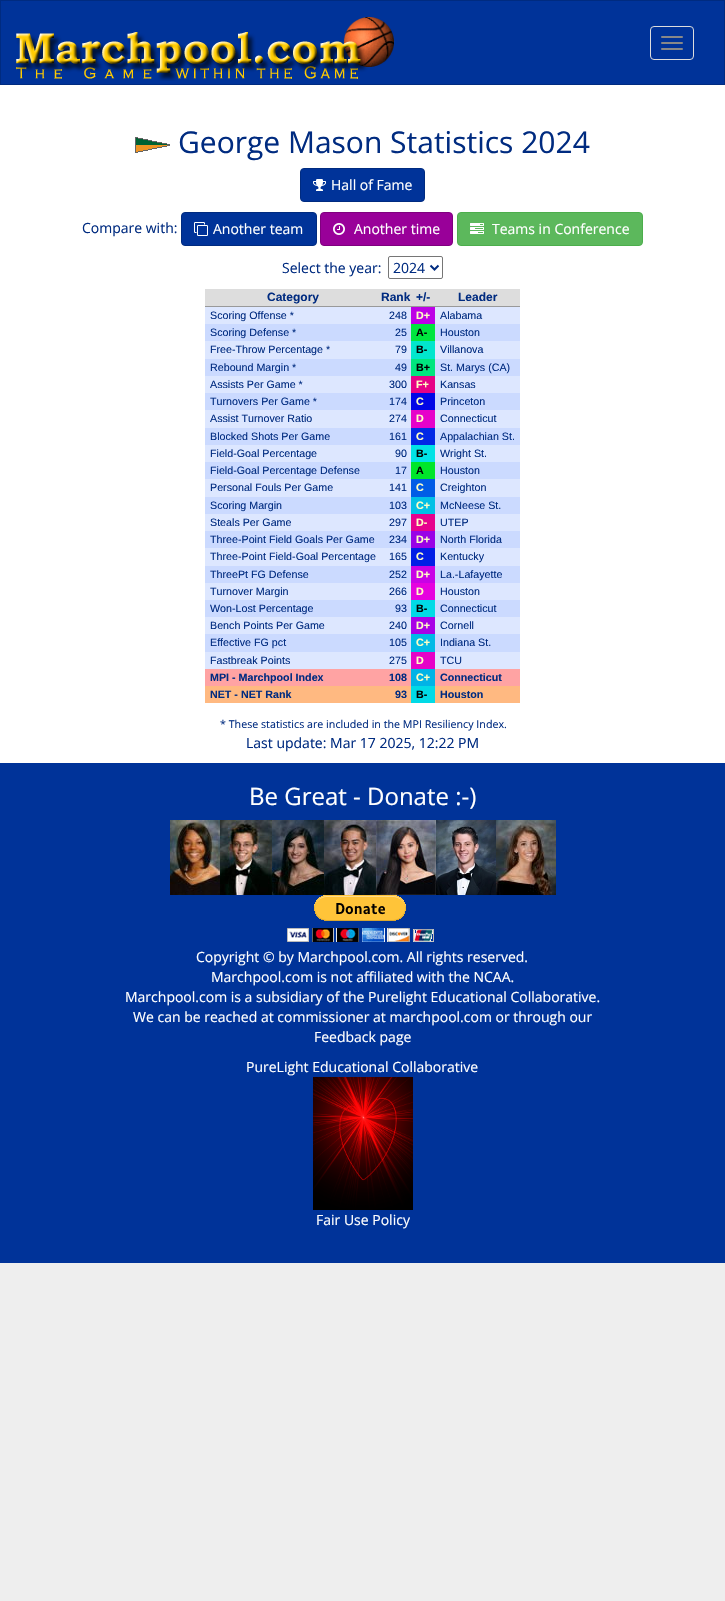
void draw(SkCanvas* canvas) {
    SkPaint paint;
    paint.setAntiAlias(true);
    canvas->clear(0xFFEEEEEE);
    paint.setColor(0xFF003399);
    canvas->drawRect(SkRect::MakeXYWH(0.5f, 0.5f, 724, 84), paint);
    paint.setStyle(SkPaint::kStroke_Style);
    paint.setStrokeWidth(1);
    paint.setColor(0xFF002B80);
    canvas->drawRect(SkRect::MakeXYWH(0.5f, 0.5f, 724, 84), paint);
    canvas->drawImageRect(SkImages::DeferredFromEncodedData(SkData::MakeFromFileName("img1.png")), SkRect::MakeXYWH(16, 17, 379, 64), SkSamplingOptions());
    paint.setColor(0xFFDDDDDD);
    canvas->drawRoundRect(SkRect::MakeXYWH(650.5f, 26.5f, 43, 33), 3.5f, 3.5f, paint);
    paint.setStyle(SkPaint::kFill_Style);
    paint.setColor(0xFF888888);
    canvas->drawRoundRect(SkRect::MakeXYWH(661, 36, 22, 2), 1, 1, paint);
    canvas->drawRoundRect(SkRect::MakeXYWH(661, 42, 22, 2), 1, 1, paint);
    canvas->drawRoundRect(SkRect::MakeXYWH(661, 48, 22, 2), 1, 1, paint);
    paint.setColor(0xFFFFFFFF);
    canvas->drawRect(SkRect::MakeXYWH(0, 85, 725, 678), paint);
    canvas->drawImageRect(SkImages::DeferredFromEncodedData(SkData::MakeFromFileName("img2.png")), SkRect::MakeXYWH(135, 137, 35, 16), SkSamplingOptions());
    SkFont font1(fontMgr->matchFamilyStyle("Open Sans", SkFontStyle::Normal()), 30);
    font1.setSubpixel(true);
    paint.setColor(0xFF002B80);
    canvas->drawString("George Mason Statistics 2024", 178, 153, font1, paint);
    paint.setColor(0xFF003399);
    canvas->drawRoundRect(SkRect::MakeXYWH(300.5f, 168.5f, 124, 33), 3.5f, 3.5f, paint);
    paint.setStyle(SkPaint::kStroke_Style);
    paint.setColor(0xFF002B80);
    canvas->drawRoundRect(SkRect::MakeXYWH(300.5f, 168.5f, 124, 33), 3.5f, 3.5f, paint);
    canvas->drawImageRect(SkImages::DeferredFromEncodedData(SkData::MakeFromFileName("img3.png")), SkRect::MakeXYWH(313, 179, 13, 12), SkSamplingOptions());
    SkFont font2(fontMgr->matchFamilyStyle("Open Sans", SkFontStyle::Normal()), 14);
    font2.setSubpixel(true);
    paint.setStyle(SkPaint::kFill_Style);
    paint.setColor(0xFFFFFFFF);
    canvas->drawString("Hall of Fame", 331, 190, font2, paint);
    paint.setColor(0xFF002B80);
    canvas->drawString("Compare with:", 82, 233, font2, paint);
    paint.setColor(0xFF003399);
    canvas->drawRoundRect(SkRect::MakeXYWH(181.5f, 212.5f, 135, 33), 3.5f, 3.5f, paint);
    paint.setStyle(SkPaint::kStroke_Style);
    paint.setColor(0xFF002B80);
    canvas->drawRoundRect(SkRect::MakeXYWH(181.5f, 212.5f, 135, 33), 3.5f, 3.5f, paint);
    canvas->drawImageRect(SkImages::DeferredFromEncodedData(SkData::MakeFromFileName("img4.png")), SkRect::MakeXYWH(194, 222, 14, 14), SkSamplingOptions());
    paint.setStyle(SkPaint::kFill_Style);
    paint.setColor(0xFFFFFFFF);
    canvas->drawString("Another team", 213, 234, font2, paint);
    paint.setColor(0xFF990099);
    canvas->drawRoundRect(SkRect::MakeXYWH(320.5f, 212.5f, 132, 33), 3.5f, 3.5f, paint);
    paint.setStyle(SkPaint::kStroke_Style);
    paint.setColor(0xFF80007F);
    canvas->drawRoundRect(SkRect::MakeXYWH(320.5f, 212.5f, 132, 33), 3.5f, 3.5f, paint);
    canvas->drawImageRect(SkImages::DeferredFromEncodedData(SkData::MakeFromFileName("img5.png")), SkRect::MakeXYWH(333, 223, 12, 12), SkSamplingOptions());
    paint.setStyle(SkPaint::kFill_Style);
    paint.setColor(0xFFFFFFFF);
    canvas->drawString("Another time", 354, 234, font2, paint);
    paint.setColor(0xFF5CB85C);
    canvas->drawRoundRect(SkRect::MakeXYWH(457.5f, 212.5f, 185, 33), 3.5f, 3.5f, paint);
    paint.setStyle(SkPaint::kStroke_Style);
    paint.setColor(0xFF4CAE4C);
    canvas->drawRoundRect(SkRect::MakeXYWH(457.5f, 212.5f, 185, 33), 3.5f, 3.5f, paint);
    canvas->drawImageRect(SkImages::DeferredFromEncodedData(SkData::MakeFromFileName("img6.png")), SkRect::MakeXYWH(470, 223, 14, 11), SkSamplingOptions());
    paint.setStyle(SkPaint::kFill_Style);
    paint.setColor(0xFFFFFFFF);
    canvas->drawString("Teams in Conference", 492, 234, font2, paint);
    paint.setColor(0xFF002B80);
    canvas->drawString("Select the year:", 282, 273, font2, paint);
    paint.setStyle(SkPaint::kStroke_Style);
    paint.setColor(0xFF767676);
    canvas->drawRoundRect(SkRect::MakeXYWH(388.5f, 256.5f, 54, 22), 1.5f, 1.5f, paint);
    paint.setStrokeWidth(2);
    paint.setColor(0xFF002B80);
    canvas->drawPath(SkPathBuilder().moveTo(430.5f, 265.5f).lineTo(434.5f, 269.5f).lineTo(438.5f, 265.5f).detach(), paint);
    paint.setStyle(SkPaint::kFill_Style);
    canvas->drawString("2024", 393, 273, font2, paint);
    paint.setColor(0xFFDDDDDD);
    canvas->drawRect(SkRect::MakeXYWH(205, 289, 315, 17), paint);
    SkFont font3(fontMgr->matchFamilyStyle("Liberation Sans", SkFontStyle::Bold()), 12);
    font3.setSubpixel(true);
    paint.setColor(0xFF002B80);
    canvas->drawString("Category", 267, 301, font3, paint);
    canvas->drawString("Rank", 381, 301, font3, paint);
    canvas->drawString("+/-", 416, 301, font3, paint);
    paint.setColor(0xFF999999);
    canvas->drawRect(SkRect::MakeXYWH(205, 306, 315, 1), paint);
    paint.setColor(0xFF002B80);
    canvas->drawString("Leader", 458, 301, font3, paint);
    paint.setColor(0xFFDDE7FF);
    canvas->drawRect(SkRect::MakeXYWH(205, 307, 315, 17), paint);
    SkFont font4(fontMgr->matchFamilyStyle("Liberation Sans", SkFontStyle::Normal()), 10.7f);
    font4.setSubpixel(true);
    paint.setColor(0xFF002B80);
    canvas->drawString("Scoring Offense *", 210, 319, font4, paint);
    canvas->drawString("248", 389, 319, font4, paint);
    paint.setColor(0xFFBD02E6);
    canvas->drawRect(SkRect::MakeXYWH(411, 307, 24, 17), paint);
    SkFont font5(fontMgr->matchFamilyStyle("Liberation Sans", SkFontStyle::Bold()), 10.7f);
    font5.setSubpixel(true);
    paint.setColor(0xFFFFFFC4);
    canvas->drawString("D+", 416, 319, font5, paint);
    paint.setColor(0xFF002B80);
    canvas->drawString("Alabama", 440, 319, font4, paint);
    paint.setColor(0xFFCBDAFF);
    canvas->drawRect(SkRect::MakeXYWH(205, 324, 315, 17), paint);
    paint.setColor(0xFF002B80);
    canvas->drawString("Scoring Defense *", 210, 336, font4, paint);
    canvas->drawString("25", 395, 336, font4, paint);
    paint.setColor(0xFF00E63F);
    canvas->drawRect(SkRect::MakeXYWH(411, 324, 24, 17), paint);
    paint.setColor(0xFF000000);
    canvas->drawString("A-", 416, 336, font5, paint);
    paint.setColor(0xFF002B80);
    canvas->drawString("Houston", 440, 336, font4, paint);
    paint.setColor(0xFFDDE7FF);
    canvas->drawRect(SkRect::MakeXYWH(205, 341, 315, 18), paint);
    paint.setColor(0xFF002B80);
    canvas->drawString("Free-Throw Percentage *", 210, 353, font4, paint);
    canvas->drawString("79", 395, 353, font4, paint);
    paint.setColor(0xFF01E6CD);
    canvas->drawRect(SkRect::MakeXYWH(411, 341, 24, 18), paint);
    paint.setColor(0xFF000000);
    canvas->drawString("B-", 416, 353, font5, paint);
    paint.setColor(0xFF002B80);
    canvas->drawString("Villanova", 440, 353, font4, paint);
    paint.setColor(0xFFCBDAFF);
    canvas->drawRect(SkRect::MakeXYWH(205, 359, 315, 17), paint);
    paint.setColor(0xFF002B80);
    canvas->drawString("Rebound Margin *", 210, 371, font4, paint);
    canvas->drawString("49", 395, 371, font4, paint);
    paint.setColor(0xFF00E67E);
    canvas->drawRect(SkRect::MakeXYWH(411, 359, 24, 17), paint);
    paint.setColor(0xFF000000);
    canvas->drawString("B+", 416, 371, font5, paint);
    paint.setColor(0xFF002B80);
    canvas->drawString("St. Marys (CA)", 440, 371, font4, paint);
    paint.setColor(0xFFDDE7FF);
    canvas->drawRect(SkRect::MakeXYWH(205, 376, 315, 17), paint);
    paint.setColor(0xFF002B80);
    canvas->drawString("Assists Per Game *", 210, 388, font4, paint);
    canvas->drawString("300", 389, 388, font4, paint);
    paint.setColor(0xFFE60287);
    canvas->drawRect(SkRect::MakeXYWH(411, 376, 24, 17), paint);
    paint.setColor(0xFFFFFFC4);
    canvas->drawString("F+", 416, 388, font5, paint);
    paint.setColor(0xFF002B80);
    canvas->drawString("Kansas", 440, 388, font4, paint);
    paint.setColor(0xFFCBDAFF);
    canvas->drawRect(SkRect::MakeXYWH(205, 393, 315, 17), paint);
    paint.setColor(0xFF002B80);
    canvas->drawString("Turnovers Per Game *", 210, 405, font4, paint);
    canvas->drawString("174", 389, 405, font4, paint);
    paint.setColor(0xFF0106E6);
    canvas->drawRect(SkRect::MakeXYWH(411, 393, 24, 17), paint);
    paint.setColor(0xFFFFFFC4);
    canvas->drawString("C", 416, 405, font5, paint);
    paint.setColor(0xFF002B80);
    canvas->drawString("Princeton", 440, 405, font4, paint);
    paint.setColor(0xFFDDE7FF);
    canvas->drawRect(SkRect::MakeXYWH(205, 410, 315, 18), paint);
    paint.setColor(0xFF002B80);
    canvas->drawString("Assist Turnover Ratio", 210, 422, font4, paint);
    canvas->drawString("274", 389, 422, font4, paint);
    paint.setColor(0xFFE602CA);
    canvas->drawRect(SkRect::MakeXYWH(411, 410, 24, 18), paint);
    paint.setColor(0xFFFFFFC4);
    canvas->drawString("D", 416, 422, font5, paint);
    paint.setColor(0xFF002B80);
    canvas->drawString("Connecticut", 440, 422, font4, paint);
    paint.setColor(0xFFCBDAFF);
    canvas->drawRect(SkRect::MakeXYWH(205, 428, 315, 17), paint);
    paint.setColor(0xFF002B80);
    canvas->drawString("Blocked Shots Per Game", 210, 440, font4, paint);
    canvas->drawString("161", 389, 440, font4, paint);
    paint.setColor(0xFF0128E6);
    canvas->drawRect(SkRect::MakeXYWH(411, 428, 24, 17), paint);
    paint.setColor(0xFFFFFFC4);
    canvas->drawString("C", 416, 440, font5, paint);
    paint.setColor(0xFF002B80);
    canvas->drawString("Appalachian St.", 440, 440, font4, paint);
    paint.setColor(0xFFDDE7FF);
    canvas->drawRect(SkRect::MakeXYWH(205, 445, 315, 17), paint);
    paint.setColor(0xFF002B80);
    canvas->drawString("Field-Goal Percentage", 210, 457, font4, paint);
    canvas->drawString("90", 395, 457, font4, paint);
    paint.setColor(0xFF01E2E6);
    canvas->drawRect(SkRect::MakeXYWH(411, 445, 24, 17), paint);
    paint.setColor(0xFF000000);
    canvas->drawString("B-", 416, 457, font5, paint);
    paint.setColor(0xFF002B80);
    canvas->drawString("Wright St.", 440, 457, font4, paint);
    paint.setColor(0xFFCBDAFF);
    canvas->drawRect(SkRect::MakeXYWH(205, 462, 315, 17), paint);
    paint.setColor(0xFF002B80);
    canvas->drawString("Field-Goal Percentage Defense", 210, 474, font4, paint);
    canvas->drawString("17", 395, 474, font4, paint);
    paint.setColor(0xFF00E62A);
    canvas->drawRect(SkRect::MakeXYWH(411, 462, 24, 17), paint);
    paint.setColor(0xFF000000);
    canvas->drawString("A", 416, 474, font5, paint);
    paint.setColor(0xFF002B80);
    canvas->drawString("Houston", 440, 474, font4, paint);
    paint.setColor(0xFFDDE7FF);
    canvas->drawRect(SkRect::MakeXYWH(205, 479, 315, 18), paint);
    paint.setColor(0xFF002B80);
    canvas->drawString("Personal Fouls Per Game", 210, 491, font4, paint);
    canvas->drawString("141", 389, 491, font4, paint);
    paint.setColor(0xFF015CE6);
    canvas->drawRect(SkRect::MakeXYWH(411, 479, 24, 18), paint);
    paint.setColor(0xFFFFFFC4);
    canvas->drawString("C", 416, 491, font5, paint);
    paint.setColor(0xFF002B80);
    canvas->drawString("Creighton", 440, 491, font4, paint);
    paint.setColor(0xFFCBDAFF);
    canvas->drawRect(SkRect::MakeXYWH(205, 497, 315, 17), paint);
    paint.setColor(0xFF002B80);
    canvas->drawString("Scoring Margin", 210, 509, font4, paint);
    canvas->drawString("103", 389, 509, font4, paint);
    paint.setColor(0xFF01C0E6);
    canvas->drawRect(SkRect::MakeXYWH(411, 497, 24, 17), paint);
    paint.setColor(0xFFFFFFC4);
    canvas->drawString("C+", 416, 509, font5, paint);
    paint.setColor(0xFF002B80);
    canvas->drawString("McNeese St.", 440, 509, font4, paint);
    paint.setColor(0xFFDDE7FF);
    canvas->drawRect(SkRect::MakeXYWH(205, 514, 315, 17), paint);
    paint.setColor(0xFF002B80);
    canvas->drawString("Steals Per Game", 210, 526, font4, paint);
    canvas->drawString("297", 389, 526, font4, paint);
    paint.setColor(0xFFE6028E);
    canvas->drawRect(SkRect::MakeXYWH(411, 514, 24, 17), paint);
    paint.setColor(0xFFFFFFC4);
    canvas->drawString("D-", 416, 526, font5, paint);
    paint.setColor(0xFF002B80);
    canvas->drawString("UTEP", 440, 526, font4, paint);
    paint.setColor(0xFFCBDAFF);
    canvas->drawRect(SkRect::MakeXYWH(205, 531, 315, 17), paint);
    paint.setColor(0xFF002B80);
    canvas->drawString("Three-Point Field Goals Per Game", 210, 543, font4, paint);
    canvas->drawString("234", 389, 543, font4, paint);
    paint.setColor(0xFF9902E6);
    canvas->drawRect(SkRect::MakeXYWH(411, 531, 24, 17), paint);
    paint.setColor(0xFFFFFFC4);
    canvas->drawString("D+", 416, 543, font5, paint);
    paint.setColor(0xFF002B80);
    canvas->drawString("North Florida", 440, 543, font4, paint);
    paint.setColor(0xFFDDE7FF);
    canvas->drawRect(SkRect::MakeXYWH(205, 548, 315, 18), paint);
    paint.setColor(0xFF002B80);
    canvas->drawString("Three-Point Field-Goal Percentage", 210, 560, font4, paint);
    canvas->drawString("165", 389, 560, font4, paint);
    paint.setColor(0xFF011EE6);
    canvas->drawRect(SkRect::MakeXYWH(411, 548, 24, 18), paint);
    paint.setColor(0xFFFFFFC4);
    canvas->drawString("C", 416, 560, font5, paint);
    paint.setColor(0xFF002B80);
    canvas->drawString("Kentucky", 440, 560, font4, paint);
    paint.setColor(0xFFCBDAFF);
    canvas->drawRect(SkRect::MakeXYWH(205, 566, 315, 17), paint);
    paint.setColor(0xFF002B80);
    canvas->drawString("ThreePt FG Defense", 210, 578, font4, paint);
    canvas->drawString("252", 389, 578, font4, paint);
    paint.setColor(0xFFC802E6);
    canvas->drawRect(SkRect::MakeXYWH(411, 566, 24, 17), paint);
    paint.setColor(0xFFFFFFC4);
    canvas->drawString("D+", 416, 578, font5, paint);
    paint.setColor(0xFF002B80);
    canvas->drawString("La.-Lafayette", 440, 578, font4, paint);
    paint.setColor(0xFFDDE7FF);
    canvas->drawRect(SkRect::MakeXYWH(205, 583, 315, 17), paint);
    paint.setColor(0xFF002B80);
    canvas->drawString("Turnover Margin", 210, 595, font4, paint);
    canvas->drawString("266", 389, 595, font4, paint);
    paint.setColor(0xFFE602DF);
    canvas->drawRect(SkRect::MakeXYWH(411, 583, 24, 17), paint);
    paint.setColor(0xFFFFFFC4);
    canvas->drawString("D", 416, 595, font5, paint);
    paint.setColor(0xFF002B80);
    canvas->drawString("Houston", 440, 595, font4, paint);
    paint.setColor(0xFFCBDAFF);
    canvas->drawRect(SkRect::MakeXYWH(205, 600, 315, 17), paint);
    paint.setColor(0xFF002B80);
    canvas->drawString("Won-Lost Percentage", 210, 612, font4, paint);
    canvas->drawString("93", 395, 612, font4, paint);
    paint.setColor(0xFF01DAE6);
    canvas->drawRect(SkRect::MakeXYWH(411, 600, 24, 17), paint);
    paint.setColor(0xFF000000);
    canvas->drawString("B-", 416, 612, font5, paint);
    paint.setColor(0xFF002B80);
    canvas->drawString("Connecticut", 440, 612, font4, paint);
    paint.setColor(0xFFDDE7FF);
    canvas->drawRect(SkRect::MakeXYWH(205, 617, 315, 17), paint);
    paint.setColor(0xFF002B80);
    canvas->drawString("Bench Points Per Game", 210, 629, font4, paint);
    canvas->drawString("240", 389, 629, font4, paint);
    paint.setColor(0xFFA802E6);
    canvas->drawRect(SkRect::MakeXYWH(411, 617, 24, 17), paint);
    paint.setColor(0xFFFFFFC4);
    canvas->drawString("D+", 416, 629, font5, paint);
    paint.setColor(0xFF002B80);
    canvas->drawString("Cornell", 440, 629, font4, paint);
    paint.setColor(0xFFCBDAFF);
    canvas->drawRect(SkRect::MakeXYWH(205, 634, 315, 18), paint);
    paint.setColor(0xFF002B80);
    canvas->drawString("Effective FG pct", 210, 646, font4, paint);
    canvas->drawString("105", 389, 646, font4, paint);
    paint.setColor(0xFF01BAE6);
    canvas->drawRect(SkRect::MakeXYWH(411, 634, 24, 18), paint);
    paint.setColor(0xFFFFFFC4);
    canvas->drawString("C+", 416, 646, font5, paint);
    paint.setColor(0xFF002B80);
    canvas->drawString("Indiana St.", 440, 646, font4, paint);
    paint.setColor(0xFFDDE7FF);
    canvas->drawRect(SkRect::MakeXYWH(205, 652, 315, 17), paint);
    paint.setColor(0xFF002B80);
    canvas->drawString("Fastbreak Points", 210, 664, font4, paint);
    canvas->drawString("275", 389, 664, font4, paint);
    paint.setColor(0xFFE602C8);
    canvas->drawRect(SkRect::MakeXYWH(411, 652, 24, 17), paint);
    paint.setColor(0xFFFFFFC4);
    canvas->drawString("D", 416, 664, font5, paint);
    paint.setColor(0xFF002B80);
    canvas->drawString("TCU", 440, 664, font4, paint);
    paint.setColor(0xFFFFA3A3);
    canvas->drawRect(SkRect::MakeXYWH(205, 669, 315, 17), paint);
    paint.setColor(0xFF002B80);
    canvas->drawString("MPI - Marchpool Index", 210, 681, font5, paint);
    canvas->drawString("108", 389, 681, font5, paint);
    paint.setColor(0xFF01B3E6);
    canvas->drawRect(SkRect::MakeXYWH(411, 669, 24, 17), paint);
    paint.setColor(0xFFFFFFC4);
    canvas->drawString("C+", 416, 681, font5, paint);
    paint.setColor(0xFF002B80);
    canvas->drawString("Connecticut", 440, 681, font5, paint);
    paint.setColor(0xFFFFB981);
    canvas->drawRect(SkRect::MakeXYWH(205, 686, 315, 17), paint);
    paint.setColor(0xFF002B80);
    canvas->drawString("NET - NET Rank", 210, 698, font5, paint);
    canvas->drawString("93", 395, 698, font5, paint);
    paint.setColor(0xFF01DAE6);
    canvas->drawRect(SkRect::MakeXYWH(411, 686, 24, 17), paint);
    paint.setColor(0xFF000000);
    canvas->drawString("B-", 416, 698, font5, paint);
    paint.setColor(0xFF002B80);
    canvas->drawString("Houston", 440, 698, font5, paint);
    SkFont font6(fontMgr->matchFamilyStyle("Open Sans", SkFontStyle::Normal()), 10.7f);
    font6.setSubpixel(true);
    canvas->drawString("* These statistics are included in the MPI Resiliency Index.", 220, 728, font6, paint);
    canvas->drawString("Last update: Mar 17 2025, 12:22 PM", 246, 748, font2, paint);
    paint.setColor(0xFF003399);
    canvas->drawRect(SkRect::MakeXYWH(0, 763, 725, 500), paint);
    SkFont font7(fontMgr->matchFamilyStyle("Open Sans", SkFontStyle::Normal()), 24);
    font7.setSubpixel(true);
    paint.setColor(0xFFFFFFFF);
    canvas->drawString("Be Great - Donate :-)", 249, 805, font7, paint);
    canvas->drawImageRect(SkImages::DeferredFromEncodedData(SkData::MakeFromFileName("img7.png")), SkRect::MakeXYWH(170, 820, 50, 75), SkSamplingOptions());
    canvas->drawImageRect(SkImages::DeferredFromEncodedData(SkData::MakeFromFileName("img8.png")), SkRect::MakeXYWH(220, 820, 52, 75), SkSamplingOptions());
    canvas->drawImageRect(SkImages::DeferredFromEncodedData(SkData::MakeFromFileName("img9.png")), SkRect::MakeXYWH(272, 820, 52, 75), SkSamplingOptions());
    canvas->drawImageRect(SkImages::DeferredFromEncodedData(SkData::MakeFromFileName("img10.png")), SkRect::MakeXYWH(324, 820, 52, 75), SkSamplingOptions());
    canvas->drawImageRect(SkImages::DeferredFromEncodedData(SkData::MakeFromFileName("img11.png")), SkRect::MakeXYWH(376, 820, 60, 75), SkSamplingOptions());
    canvas->drawImageRect(SkImages::DeferredFromEncodedData(SkData::MakeFromFileName("img12.png")), SkRect::MakeXYWH(436, 820, 60, 75), SkSamplingOptions());
    canvas->drawImageRect(SkImages::DeferredFromEncodedData(SkData::MakeFromFileName("img13.png")), SkRect::MakeXYWH(496, 820, 60, 75), SkSamplingOptions());
    canvas->drawImageRect(SkImages::DeferredFromEncodedData(SkData::MakeFromFileName("img14.png")), SkRect::MakeXYWH(287, 895, 147, 47), SkSamplingOptions());
    canvas->drawString("Copyright © by Marchpool.com. All rights reserved.", 196, 962, font2, paint);
    canvas->drawString("Marchpool.com is not affiliated with the NCAA.", 211, 982, font2, paint);
    canvas->drawString("Marchpool.com is a subsidiary of the Purelight Educational Collaborative.", 125, 1002, font2, paint);
    canvas->drawString("We can be reached at commissioner at marchpool.com or through our", 133, 1022, font2, paint);
    canvas->drawString("Feedback page", 314, 1042, font2, paint);
    canvas->drawString("PureLight Educational Collaborative", 246, 1072, font2, paint);
    canvas->drawImageRect(SkImages::DeferredFromEncodedData(SkData::MakeFromFileName("img15.png")), SkRect::MakeXYWH(313, 1077, 100, 133), SkSamplingOptions());
    canvas->drawString("Fair Use Policy", 316, 1225, font2, paint);
}
